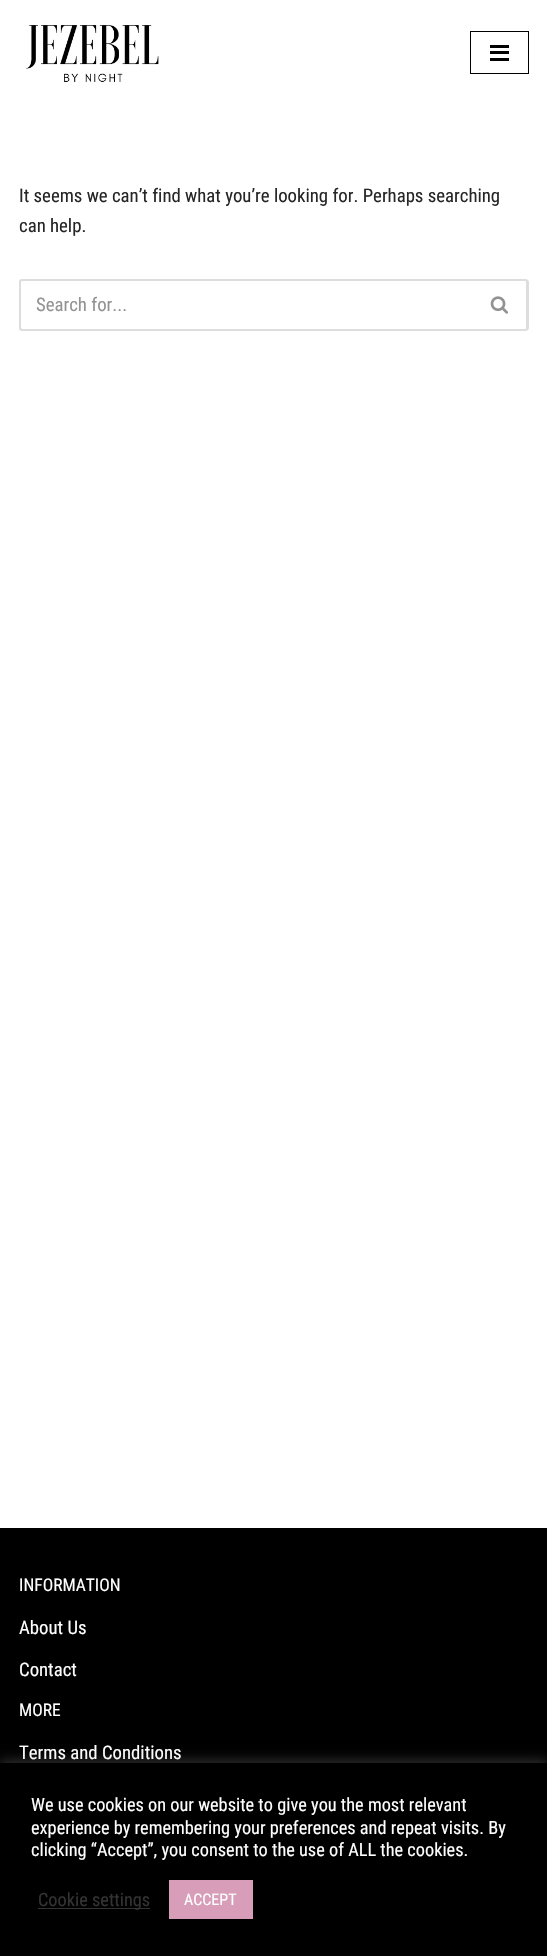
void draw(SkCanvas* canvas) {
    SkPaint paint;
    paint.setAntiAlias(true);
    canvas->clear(0xFFFFFFFF);
    canvas->drawImageRect(SkImages::DeferredFromEncodedData(SkData::MakeFromFileName("img1.png")), SkRect::MakeXYWH(26, 25, 133, 58), SkSamplingOptions());
    paint.setStyle(SkPaint::kStroke_Style);
    paint.setStrokeWidth(1);
    paint.setColor(0xFF000000);
    canvas->drawRect(SkRect::MakeXYWH(470.5f, 31.5f, 58, 42), paint);
    paint.setStyle(SkPaint::kFill_Style);
    canvas->drawRect(SkRect::MakeXYWH(490, 45, 19, 3), paint);
    canvas->drawRect(SkRect::MakeXYWH(490, 51, 19, 3), paint);
    canvas->drawRect(SkRect::MakeXYWH(490, 58, 19, 3), paint);
    SkFont font1(fontMgr->matchFamilyStyle("Roboto Condensed", SkFontStyle::Normal()), 18.75f);
    font1.setSubpixel(true);
    paint.setColor(0xFF272626);
    canvas->drawString("It seems we can’t find what you’re looking for. Perhaps searching", 19, 202, font1, paint);
    canvas->drawString("can help.", 19, 232, font1, paint);
    paint.setColor(0xFFDDDDDD);
    canvas->drawPath(SkPathBuilder(SkPathFillType::kEvenOdd).moveTo(22, 279).lineTo(472, 279).lineTo(472, 331).lineTo(22, 331).cubicTo(20, 331, 19, 330, 19, 328).lineTo(19, 282).cubicTo(19, 280, 20, 279, 22, 279).close().moveTo(22, 281).lineTo(472, 281).lineTo(472, 329).lineTo(22, 329).cubicTo(22, 329, 21, 328, 21, 328).lineTo(21, 282).cubicTo(21, 282, 22, 281, 22, 281).close().detach(), paint);
    paint.setColor(0xFF939393);
    canvas->drawString("Search for...", 36, 311, font1, paint);
    paint.setColor(0xFFDDDDDD);
    canvas->drawPath(SkPathBuilder(SkPathFillType::kEvenOdd).moveTo(472, 279).lineTo(525, 279).cubicTo(527, 279, 529, 280, 529, 282).lineTo(529, 328).cubicTo(529, 330, 527, 331, 525, 331).lineTo(472, 331).close().moveTo(472, 281).lineTo(525, 281).cubicTo(526, 281, 526, 282, 526, 282).lineTo(526, 328).cubicTo(526, 328, 526, 329, 525, 329).lineTo(472, 329).close().detach(), paint);
    canvas->drawImageRect(SkImages::DeferredFromEncodedData(SkData::MakeFromFileName("img2.png")), SkRect::MakeXYWH(490, 296, 18, 18), SkSamplingOptions());
    paint.setColor(0xFF000000);
    canvas->drawRect(SkRect::MakeXYWH(0, 1528, 547, 235), paint);
    SkFont font2(fontMgr->matchFamilyStyle("Roboto Condensed", SkFontStyle::Normal()), 17.5f);
    font2.setSubpixel(true);
    paint.setColor(0xFFFFFFFF);
    canvas->drawString("INFORMATION", 19, 1591, font2, paint);
    canvas->drawString("About Us", 19, 1634, font1, paint);
    canvas->drawString("Contact", 19, 1676, font1, paint);
    canvas->drawString("MORE", 19, 1716, font2, paint);
    canvas->drawString("Terms and Conditions", 19, 1759, font1, paint);
    paint.setColor(0x4DACABAB);
    paint.setMaskFilter(SkMaskFilter::MakeBlur(kNormal_SkBlurStyle, 6));
    canvas->drawRect(SkRect::MakeXYWH(0, 1761, 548, 194), paint);
    paint.setMaskFilter(nullptr);
    paint.setColor(0xFF000000);
    canvas->drawRect(SkRect::MakeXYWH(0, 1763, 547, 193), paint);
    SkFont font3(fontMgr->matchFamilyStyle("Roboto Condensed", SkFontStyle::Normal()), 18.3f);
    font3.setSubpixel(true);
    paint.setColor(0xFFFFFFFF);
    canvas->drawString("We use cookies on our website to give you the most relevant", 31, 1811, font3, paint);
    canvas->drawString("experience by remembering your preferences and repeat visits. By", 31, 1834, font3, paint);
    canvas->drawString("clicking “Accept”, you consent to the use of ALL the cookies.", 31, 1856, font3, paint);
    paint.setColor(0xFF333333);
    canvas->drawRect(SkRect::MakeXYWH(38, 1908, 112, 1), paint);
    canvas->drawString("Cookie settings", 38, 1906, font3, paint);
    paint.setColor(0xFFD89EB9);
    canvas->drawRect(SkRect::MakeXYWH(169, 1880, 84, 39), paint);
    SkFont font4(fontMgr->matchFamilyStyle("Roboto Condensed", SkFontStyle::Normal()), 16);
    font4.setSubpixel(true);
    paint.setColor(0xFFFFFFFF);
    canvas->drawString("ACCEPT", 184, 1905, font4, paint);
}
